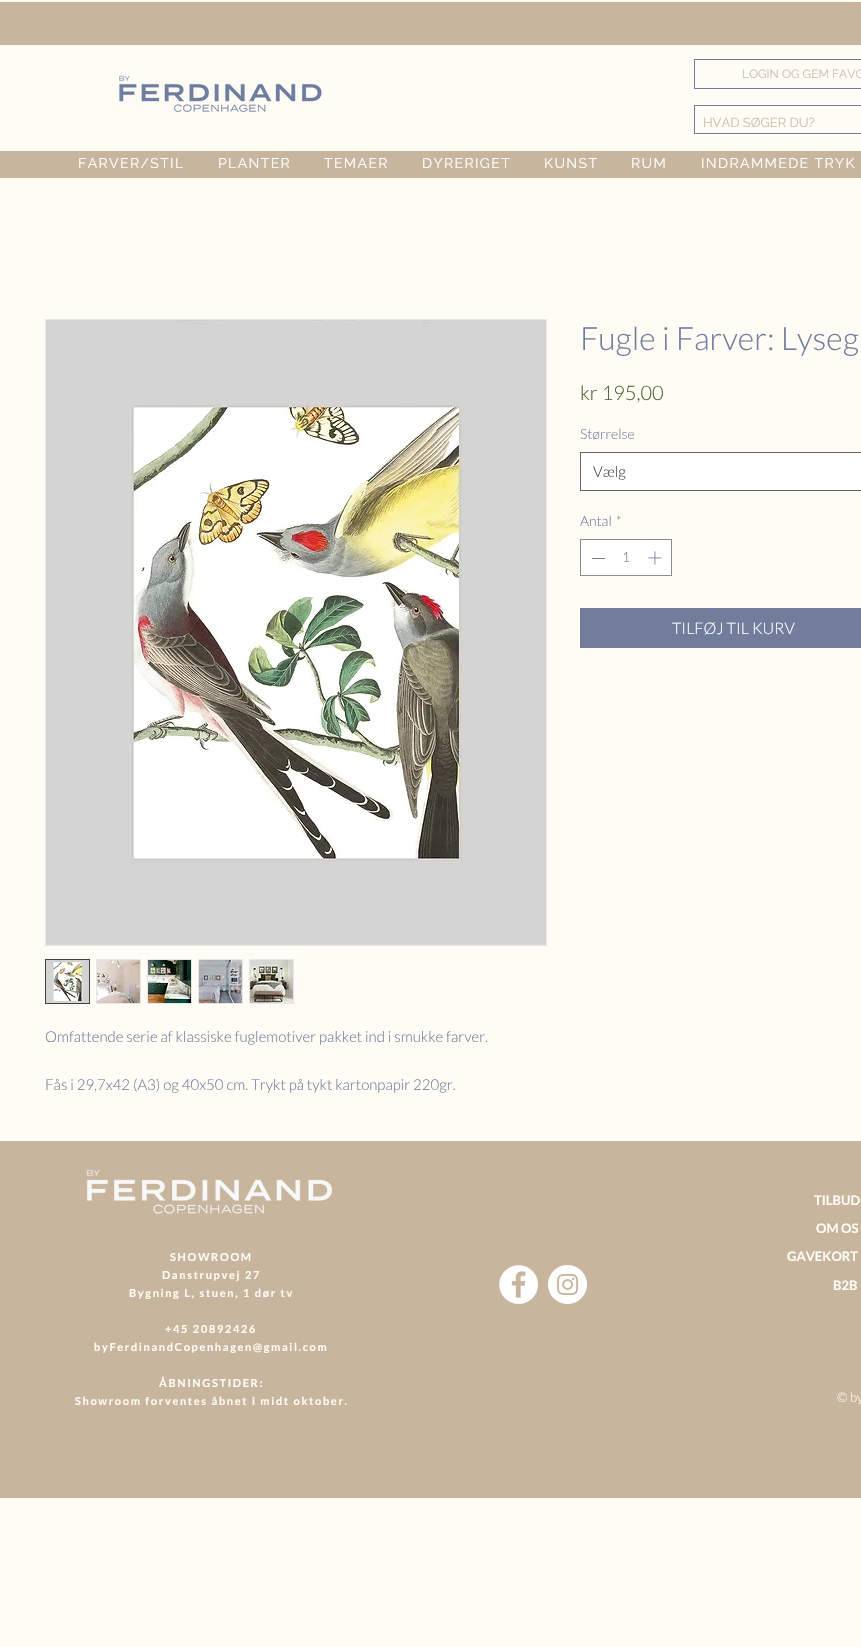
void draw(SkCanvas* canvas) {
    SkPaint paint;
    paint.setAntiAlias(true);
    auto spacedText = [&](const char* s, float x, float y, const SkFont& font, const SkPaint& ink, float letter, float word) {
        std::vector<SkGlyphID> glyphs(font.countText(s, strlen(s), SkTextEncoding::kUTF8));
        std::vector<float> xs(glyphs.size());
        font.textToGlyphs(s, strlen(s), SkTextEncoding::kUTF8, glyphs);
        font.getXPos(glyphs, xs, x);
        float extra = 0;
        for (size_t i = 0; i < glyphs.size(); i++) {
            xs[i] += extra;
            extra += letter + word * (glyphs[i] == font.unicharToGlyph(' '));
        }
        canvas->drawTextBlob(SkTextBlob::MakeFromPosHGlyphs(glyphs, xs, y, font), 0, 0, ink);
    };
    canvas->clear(0xFFFFFBF5);
    paint.setColor(0xFFC8B59D);
    canvas->drawRect(SkRect::MakeXYWH(0, 2, 861, 43), paint);
    paint.setStyle(SkPaint::kStroke_Style);
    paint.setStrokeWidth(1);
    paint.setColor(0xFF727D9C);
    canvas->drawRect(SkRect::MakeXYWH(694.5f, 59.5f, 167, 29), paint);
    SkFont font1(fontMgr->matchFamilyStyle("Raleway", SkFontStyle::Normal()), 12);
    font1.setSubpixel(true);
    paint.setStyle(SkPaint::kFill_Style);
    paint.setColor(0xFFC9C3B1);
    canvas->drawString("LOGIN OG GEM FAVO", 742, 78, font1, paint);
    canvas->drawImageRect(SkImages::DeferredFromEncodedData(SkData::MakeFromFileName("img1.png")), SkRect::MakeXYWH(119, 75, 203, 37), SkSamplingOptions());
    paint.setStyle(SkPaint::kStroke_Style);
    paint.setColor(0xFF727D9C);
    canvas->drawRect(SkRect::MakeXYWH(694.5f, 105.5f, 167, 28), paint);
    SkFont font2(fontMgr->matchFamilyStyle("Raleway", SkFontStyle::Normal()), 13);
    font2.setSubpixel(true);
    paint.setStyle(SkPaint::kFill_Style);
    paint.setColor(0xFFC9C3B1);
    canvas->drawString("HVAD SØGER DU?", 703, 127, font2, paint);
    paint.setColor(0xFFC8B59D);
    canvas->drawRect(SkRect::MakeXYWH(0, 151, 861, 27), paint);
    SkFont font3(fontMgr->matchFamilyStyle("Raleway", SkFontStyle::Normal()), 14);
    font3.setSubpixel(true);
    paint.setColor(0xFFFFFFFF);
    spacedText("FARVER/STIL", 78, 168, font3, paint, 1.4f, 0);
    spacedText("PLANTER", 218, 168, font3, paint, 1.4f, 0);
    spacedText("TEMAER", 324, 168, font3, paint, 1.4f, 0);
    spacedText("DYRERIGET", 422, 168, font3, paint, 1.4f, 0);
    spacedText("KUNST", 544, 168, font3, paint, 1.4f, 0);
    spacedText("RUM", 631, 168, font3, paint, 1.4f, 0);
    spacedText("INDRAMMEDE TRYK", 701, 168, font3, paint, 1.4f, 0);
    SkFont font4(fontMgr->matchFamilyStyle("Lato", SkFontStyle(300, SkFontStyle::kNormal_Width, SkFontStyle::kUpright_Slant)), 32);
    font4.setSubpixel(true);
    paint.setColor(0xFF727D9C);
    canvas->drawString("Fugle i Farver: Lyseg", 580, 350, font4, paint);
    SkFont font5(fontMgr->matchFamilyStyle("Lato", SkFontStyle(300, SkFontStyle::kNormal_Width, SkFontStyle::kUpright_Slant)), 20);
    font5.setSubpixel(true);
    paint.setColor(0xFF4E6636);
    canvas->drawString("kr 195,00", 580, 400, font5, paint);
    SkFont font6(fontMgr->matchFamilyStyle("Lato", SkFontStyle(300, SkFontStyle::kNormal_Width, SkFontStyle::kUpright_Slant)), 14);
    font6.setSubpixel(true);
    paint.setColor(0xFF727D9C);
    canvas->drawString("Størrelse", 580, 439, font6, paint);
    paint.setColor(0xFFFFFFFF);
    canvas->drawRect(SkRect::MakeXYWH(580.5f, 452.5f, 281, 38), paint);
    paint.setStyle(SkPaint::kStroke_Style);
    paint.setColor(0xFF666666);
    canvas->drawRect(SkRect::MakeXYWH(580.5f, 452.5f, 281, 38), paint);
    SkFont font7(fontMgr->matchFamilyStyle("Lato", SkFontStyle(300, SkFontStyle::kNormal_Width, SkFontStyle::kUpright_Slant)), 15);
    font7.setSubpixel(true);
    paint.setStyle(SkPaint::kFill_Style);
    paint.setColor(0xFF444444);
    canvas->drawString("Vælg", 593, 477, font7, paint);
    paint.setColor(0xFF727D9C);
    canvas->drawString("Antal", 580, 526, font6, paint);
    canvas->drawString("*", 616, 526, font6, paint);
    paint.setColor(0xFFFFFFFF);
    canvas->drawRect(SkRect::MakeXYWH(580.5f, 539.5f, 91, 36), paint);
    paint.setStyle(SkPaint::kStroke_Style);
    paint.setColor(0xFF8D8D8D);
    canvas->drawRect(SkRect::MakeXYWH(580.5f, 539.5f, 91, 36), paint);
    paint.setStyle(SkPaint::kFill_Style);
    paint.setColor(0xFF727D9C);
    canvas->drawRect(SkRect::MakeXYWH(592, 558, 13, 1), paint);
    canvas->drawString("1", 622, 562, font6, paint);
    canvas->drawImageRect(SkImages::DeferredFromEncodedData(SkData::MakeFromFileName("img2.png")), SkRect::MakeXYWH(648, 551, 14, 14), SkSamplingOptions());
    canvas->drawRect(SkRect::MakeXYWH(580, 608, 281, 40), paint);
    SkFont font8(fontMgr->matchFamilyStyle("Lato", SkFontStyle(300, SkFontStyle::kNormal_Width, SkFontStyle::kUpright_Slant)), 16);
    font8.setSubpixel(true);
    paint.setColor(0xFFFFFFFF);
    canvas->drawString("TILFØJ TIL KURV", 672, 634, font8, paint);
    paint.setStyle(SkPaint::kStroke_Style);
    paint.setColor(0xFFE8E6E6);
    canvas->drawRect(SkRect::MakeXYWH(45.5f, 319.5f, 501, 626), paint);
    canvas->drawImageRect(SkImages::DeferredFromEncodedData(SkData::MakeFromFileName("img3.png")), SkRect::MakeXYWH(46, 320, 500, 625), SkSamplingOptions());
    paint.setColor(0xFF414141);
    canvas->drawRect(SkRect::MakeXYWH(45.5f, 959.5f, 44, 44), paint);
    canvas->drawImageRect(SkImages::DeferredFromEncodedData(SkData::MakeFromFileName("img4.png")), SkRect::MakeXYWH(46, 960, 43, 43), SkSamplingOptions());
    paint.setColor(0xFFE8E6E6);
    canvas->drawRect(SkRect::MakeXYWH(96.5f, 959.5f, 44, 44), paint);
    canvas->drawImageRect(SkImages::DeferredFromEncodedData(SkData::MakeFromFileName("img5.png")), SkRect::MakeXYWH(97, 960, 43, 43), SkSamplingOptions());
    canvas->drawRect(SkRect::MakeXYWH(147.5f, 959.5f, 44, 44), paint);
    canvas->drawImageRect(SkImages::DeferredFromEncodedData(SkData::MakeFromFileName("img6.png")), SkRect::MakeXYWH(148, 960, 43, 43), SkSamplingOptions());
    canvas->drawRect(SkRect::MakeXYWH(198.5f, 959.5f, 44, 44), paint);
    canvas->drawImageRect(SkImages::DeferredFromEncodedData(SkData::MakeFromFileName("img7.png")), SkRect::MakeXYWH(199, 960, 43, 43), SkSamplingOptions());
    canvas->drawRect(SkRect::MakeXYWH(249.5f, 959.5f, 44, 44), paint);
    canvas->drawImageRect(SkImages::DeferredFromEncodedData(SkData::MakeFromFileName("img8.png")), SkRect::MakeXYWH(250, 960, 43, 43), SkSamplingOptions());
    paint.setStyle(SkPaint::kFill_Style);
    paint.setColor(0xFF727D9C);
    canvas->drawString("Omfattende serie af klassiske fuglemotiver pakket ind i smukke farver.", 45, 1042, font7, paint);
    canvas->drawString("Fås i 29,7x42 (A3) og 40x50 cm. Trykt på tykt kartonpapir 220gr.", 45, 1090, font7, paint);
    paint.setColor(0xFFC8B59D);
    canvas->drawRect(SkRect::MakeXYWH(0, 1141, 861, 357), paint);
    canvas->drawImageRect(SkImages::DeferredFromEncodedData(SkData::MakeFromFileName("img9.png")), SkRect::MakeXYWH(86, 1169, 246, 45), SkSamplingOptions());
    SkFont font9(fontMgr->matchFamilyStyle("Lato", SkFontStyle::Bold()), 13);
    font9.setSubpixel(true);
    paint.setColor(0xFFFFFBF5);
    canvas->drawString("TILBUD", 814, 1205, font9, paint);
    canvas->drawString("OM OS", 816, 1233, font9, paint);
    SkFont font10(fontMgr->matchFamilyStyle("Lato", SkFontStyle::Bold()), 11);
    font10.setSubpixel(true);
    spacedText("SHOWROOM", 170, 1261, font10, paint, 1.65f, 0);
    spacedText("Danstrupvej 27", 162, 1279, font10, paint, 1.65f, 0);
    spacedText("Bygning L, stuen, 1 dør tv", 129, 1297, font10, paint, 1.65f, 0);
    spacedText("+45 20892426", 165, 1333, font10, paint, 1.65f, 0);
    spacedText("byFerdinandCopenhagen@gmail.com", 94, 1351, font10, paint, 1.65f, 0);
    spacedText("ÅBNINGSTIDER:", 159, 1387, font10, paint, 1.65f, 0);
    spacedText("Showroom forventes åbnet i midt oktober.", 75, 1405, font10, paint, 1.65f, 0);
    canvas->drawImageRect(SkImages::DeferredFromEncodedData(SkData::MakeFromFileName("img10.png")), SkRect::MakeXYWH(499, 1265, 39, 39), SkSamplingOptions());
    canvas->drawImageRect(SkImages::DeferredFromEncodedData(SkData::MakeFromFileName("img11.png")), SkRect::MakeXYWH(548, 1265, 39, 39), SkSamplingOptions());
    canvas->drawString("GAVEKORT", 787, 1261, font9, paint);
    canvas->drawString("B2B", 833, 1290, font9, paint);
    SkFont font11(fontMgr->matchFamilyStyle("Lato", SkFontStyle(300, SkFontStyle::kNormal_Width, SkFontStyle::kUpright_Slant)), 13);
    font11.setSubpixel(true);
    paint.setColor(0xFFFCF8ED);
    canvas->drawString("© by", 837, 1402, font11, paint);
}
